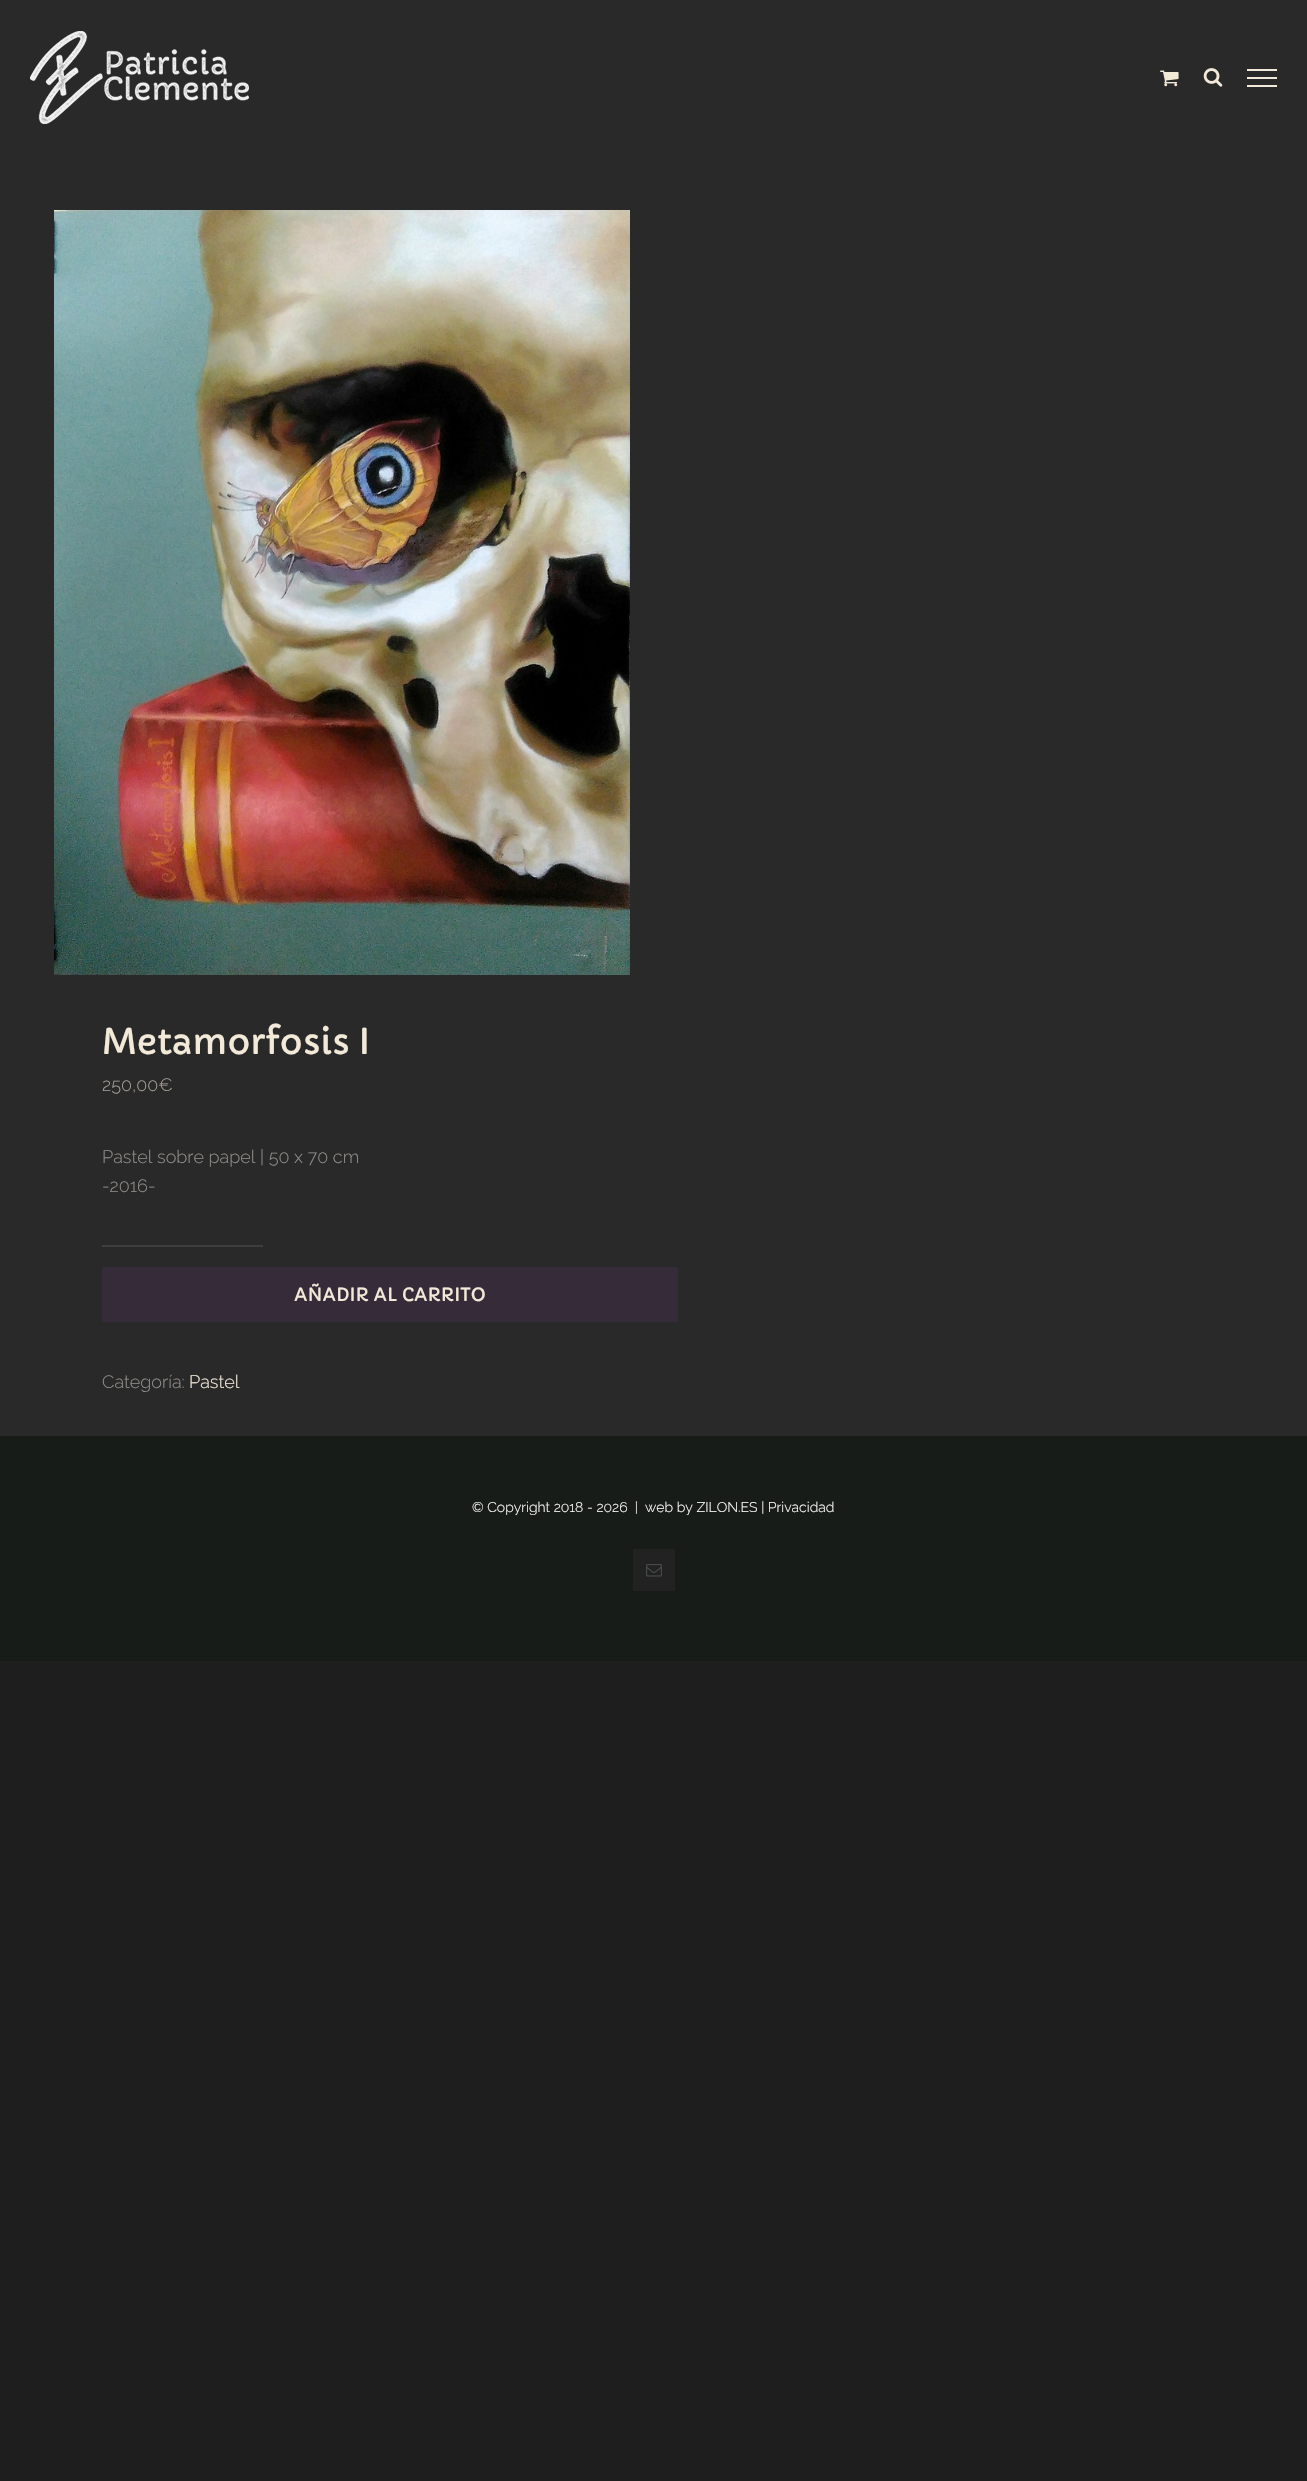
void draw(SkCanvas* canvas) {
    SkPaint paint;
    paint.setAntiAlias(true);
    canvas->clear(0xFF1E1E1E);
    paint.setColor(0xFF29292A);
    canvas->drawRect(SkRect::MakeXYWH(0, 0, 1307, 1436), paint);
    canvas->drawImageRect(SkImages::DeferredFromEncodedData(SkData::MakeFromFileName("img1.png")), SkRect::MakeXYWH(30, 31, 219, 93), SkSamplingOptions());
    canvas->drawImageRect(SkImages::DeferredFromEncodedData(SkData::MakeFromFileName("img2.png")), SkRect::MakeXYWH(1160, 70, 19, 17), SkSamplingOptions());
    canvas->drawImageRect(SkImages::DeferredFromEncodedData(SkData::MakeFromFileName("img3.png")), SkRect::MakeXYWH(1203, 68, 20, 19), SkSamplingOptions());
    paint.setColor(0xFFF3E9D8);
    canvas->drawRect(SkRect::MakeXYWH(1247, 69, 30, 2), paint);
    canvas->drawRect(SkRect::MakeXYWH(1247, 77, 30, 2), paint);
    canvas->drawRect(SkRect::MakeXYWH(1247, 85, 30, 2), paint);
    canvas->drawImageRect(SkImages::DeferredFromEncodedData(SkData::MakeFromFileName("img4.png")), SkRect::MakeXYWH(54, 210, 576, 765), SkSamplingOptions());
    SkFont font1(fontMgr->matchFamilyStyle("Capriola", SkFontStyle::Normal()), 35);
    font1.setSubpixel(true);
    canvas->drawString("Metamorfosis I", 102, 1054, font1, paint);
    SkFont font2(fontMgr->matchFamilyStyle("Raleway", SkFontStyle(300, SkFontStyle::kNormal_Width, SkFontStyle::kUpright_Slant)), 18);
    font2.setSubpixel(true);
    paint.setColor(0xFFA69F94);
    canvas->drawString("250,00€", 102, 1091, font2, paint);
    paint.setColor(0xFF918E8A);
    canvas->drawString("Pastel sobre papel | 50 x 70 cm", 102, 1163, font2, paint);
    canvas->drawString("-2016-", 102, 1192, font2, paint);
    paint.setColor(0xFF3E3E3E);
    canvas->drawRect(SkRect::MakeXYWH(102, 1245, 161, 2), paint);
    paint.setColor(0xFF352B39);
    canvas->drawRoundRect(SkRect::MakeXYWH(102, 1267, 576, 55), 2, 2, paint);
    SkFont font3(fontMgr->matchFamilyStyle("Capriola", SkFontStyle::Normal()), 18);
    font3.setSubpixel(true);
    paint.setColor(0xFFF3E9D8);
    canvas->drawString("AÑADIR AL CARRITO", 294, 1301, font3, paint);
    paint.setColor(0xFF918E8A);
    canvas->drawString("Categoría:", 102, 1388, font2, paint);
    paint.setColor(0xFFF3E9D8);
    canvas->drawString("Pastel", 189, 1388, font2, paint);
    paint.setColor(0xFF181C19);
    canvas->drawRect(SkRect::MakeXYWH(0, 1436, 1307, 225), paint);
    SkFont font4(fontMgr->matchFamilyStyle("Raleway", SkFontStyle(300, SkFontStyle::kNormal_Width, SkFontStyle::kUpright_Slant)), 14);
    font4.setSubpixel(true);
    paint.setColor(0xFFFFFFFF);
    canvas->drawString("© Copyright 2018 - 2026  |  web by ZILON.ES | Privacidad", 472, 1512, font4, paint);
    paint.setColor(0xFF222222);
    canvas->drawRect(SkRect::MakeXYWH(633, 1549, 42, 42), paint);
    canvas->drawImageRect(SkImages::DeferredFromEncodedData(SkData::MakeFromFileName("img5.png")), SkRect::MakeXYWH(646, 1564, 16, 13), SkSamplingOptions());
}
